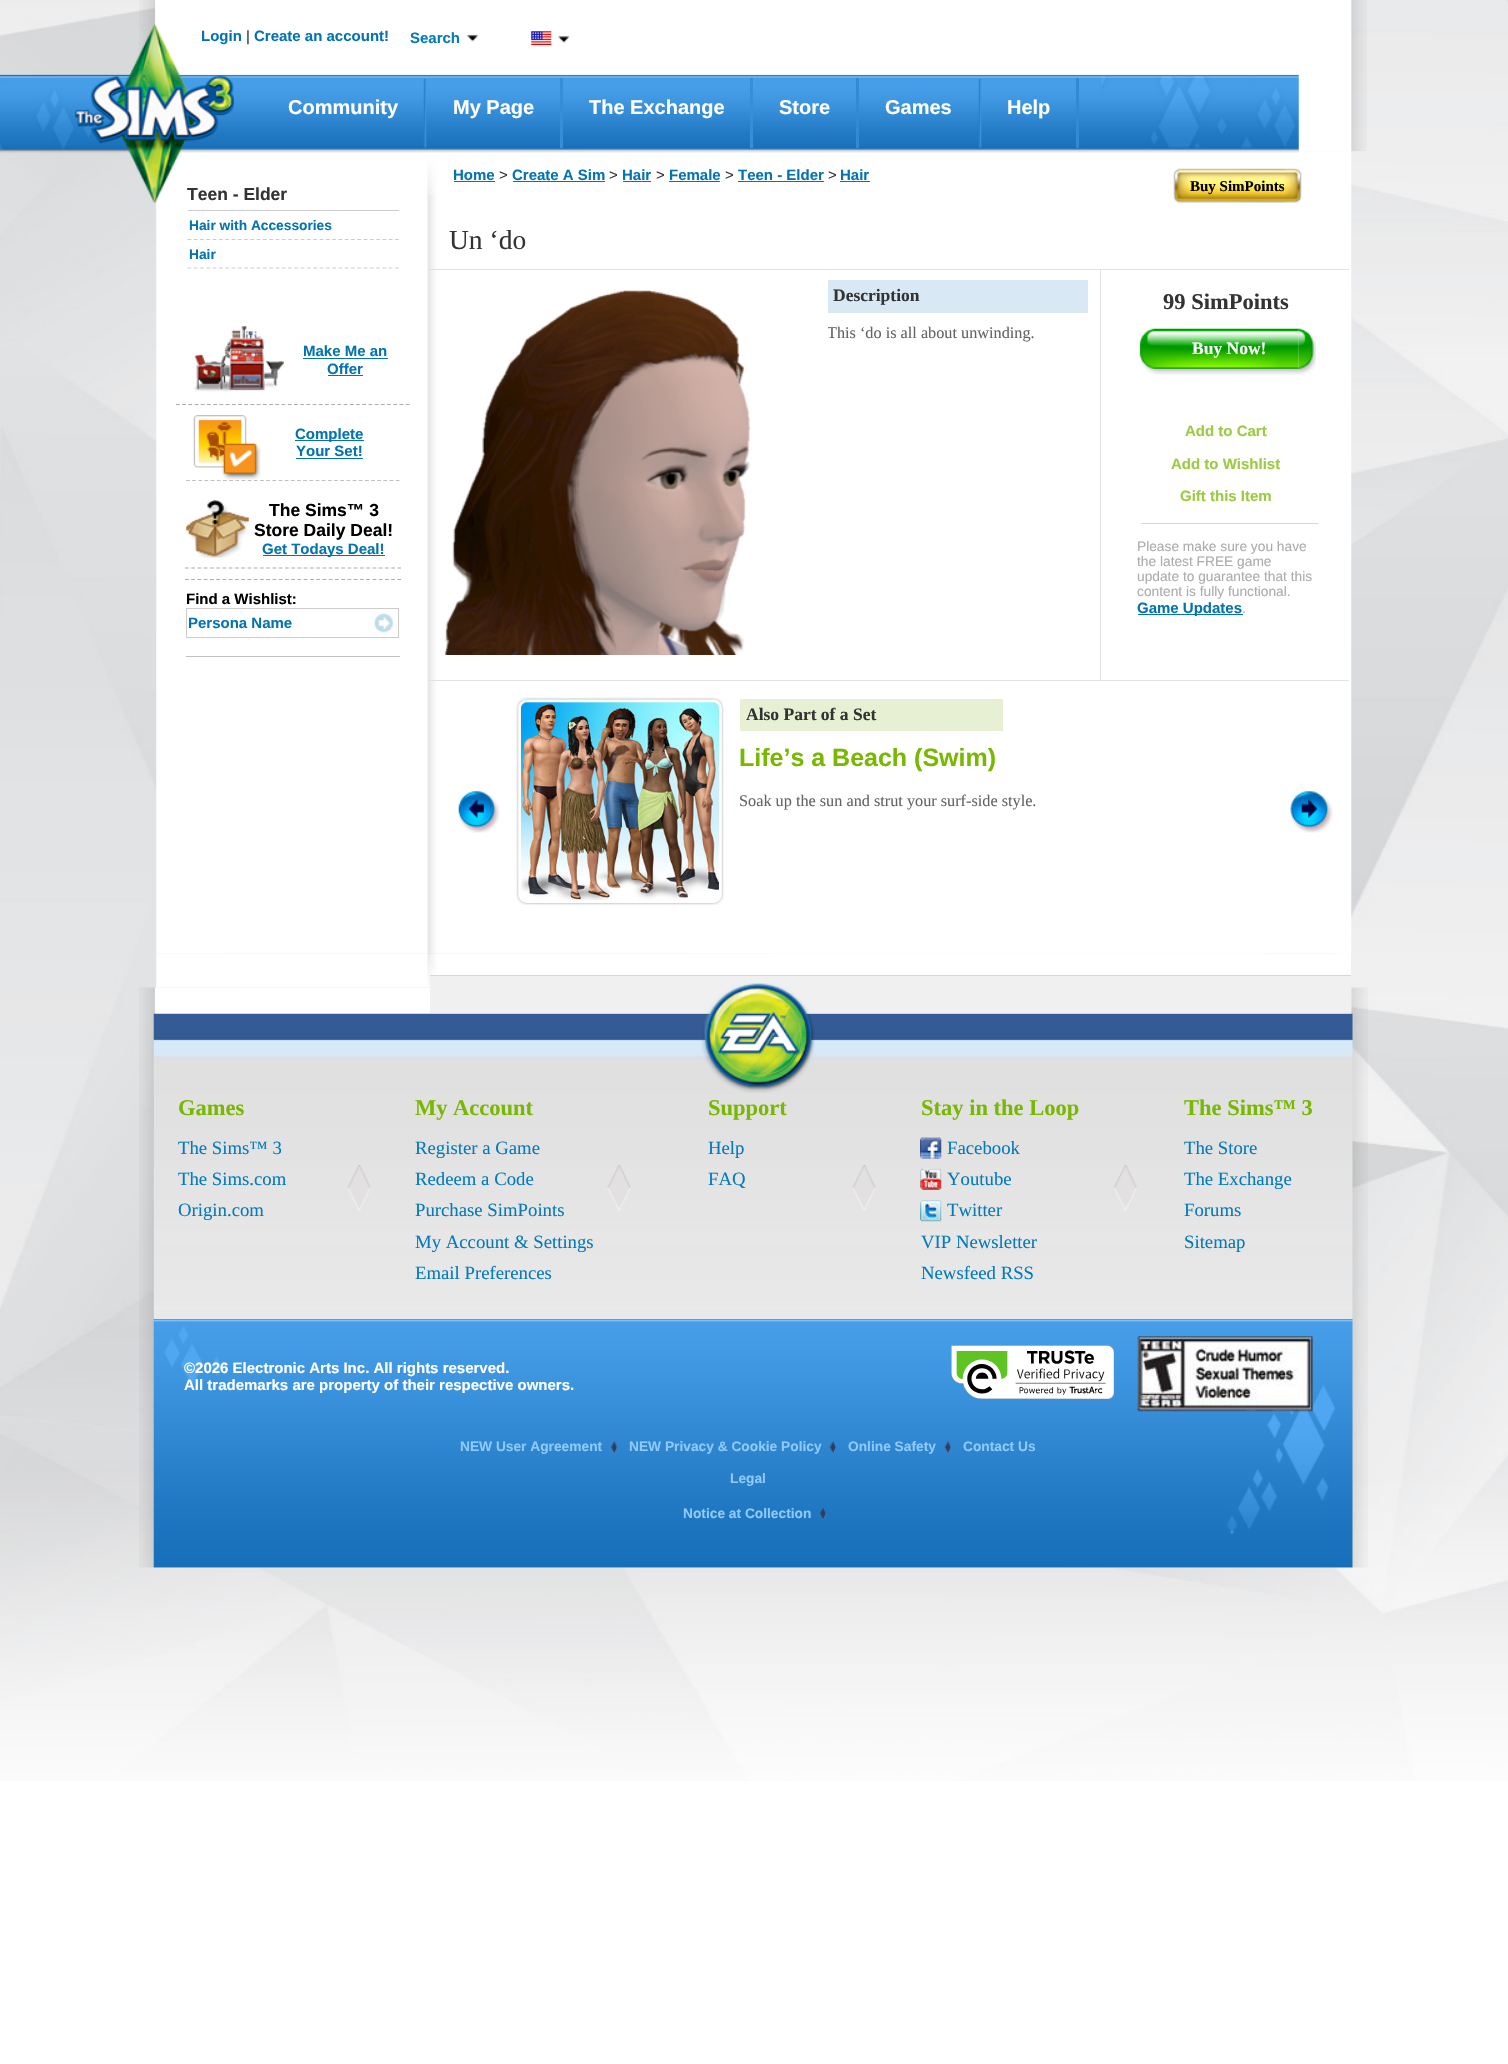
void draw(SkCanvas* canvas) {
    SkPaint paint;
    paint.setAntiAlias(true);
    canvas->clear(0xFFFFFFFF);
    canvas->drawImageRect(SkImages::DeferredFromEncodedData(SkData::MakeFromFileName("img1.png")), SkRect::MakeXYWH(0, 0, 1508, 1781), SkSamplingOptions());
    canvas->drawImageRect(SkImages::DeferredFromEncodedData(SkData::MakeFromFileName("img5.png")), SkRect::MakeXYWH(0, 74, 437, 78), SkSamplingOptions());
    canvas->drawImageRect(SkImages::DeferredFromEncodedData(SkData::MakeFromFileName("img10.png")), SkRect::MakeXYWH(139, 20, 1228, 132), SkSamplingOptions());
    canvas->drawImageRect(SkImages::DeferredFromEncodedData(SkData::MakeFromFileName("img11.png")), SkRect::MakeXYWH(157, 151, 1195, 44), SkSamplingOptions());
    canvas->drawImageRect(SkImages::DeferredFromEncodedData(SkData::MakeFromFileName("img6.png")), SkRect::MakeXYWH(0, 74, 1299, 79), SkSamplingOptions());
    canvas->drawImageRect(SkImages::DeferredFromEncodedData(SkData::MakeFromFileName("img25.png")), SkRect::MakeXYWH(156, 953, 1195, 35), SkSamplingOptions());
    canvas->drawImageRect(SkImages::DeferredFromEncodedData(SkData::MakeFromFileName("img12.png")), SkRect::MakeXYWH(156, 195, 1196, 759), SkSamplingOptions());
    canvas->drawImageRect(SkImages::DeferredFromEncodedData(SkData::MakeFromFileName("img7.png")), SkRect::MakeXYWH(74, 23, 160, 180), SkSamplingOptions());
    SkFont font1(fontMgr->matchFamilyStyle("Liberation Sans", SkFontStyle::Bold()), 15);
    font1.setSubpixel(true);
    paint.setColor(0xFF0473B2);
    canvas->drawString("Login", 201, 41, font1, paint);
    SkFont font2(fontMgr->matchFamilyStyle("Liberation Sans", SkFontStyle::Normal()), 15);
    font2.setSubpixel(true);
    paint.setColor(0xFF333333);
    canvas->drawString("|", 246, 41, font2, paint);
    paint.setColor(0xFF0473B2);
    canvas->drawString("Create an account!", 254, 41, font1, paint);
    canvas->drawImageRect(SkImages::DeferredFromEncodedData(SkData::MakeFromFileName("img2.png")), SkRect::MakeXYWH(466, 34, 13, 8), SkSamplingOptions());
    paint.setColor(0xFF057BBA);
    canvas->drawString("Search", 410, 43, font1, paint);
    canvas->drawImageRect(SkImages::DeferredFromEncodedData(SkData::MakeFromFileName("img3.png")), SkRect::MakeXYWH(558, 36, 12, 7), SkSamplingOptions());
    canvas->drawImageRect(SkImages::DeferredFromEncodedData(SkData::MakeFromFileName("img4.png")), SkRect::MakeXYWH(531, 31, 21, 14), SkSamplingOptions());
    canvas->drawImageRect(SkImages::DeferredFromEncodedData(SkData::MakeFromFileName("img8.png")), SkRect::MakeXYWH(423, 78, 4, 70), SkSamplingOptions());
    SkFont font3(fontMgr->matchFamilyStyle("Liberation Sans", SkFontStyle::Bold()), 20);
    font3.setSubpixel(true);
    paint.setColor(0xFFFFFFFF);
    canvas->drawString("Community", 288, 114, font3, paint);
    paint.setColor(0xFF368ED8);
    canvas->drawRect(SkRect::MakeXYWH(560, 78, 3, 70), paint);
    paint.setColor(0xFFFFFFFF);
    canvas->drawString("My Page", 453, 114, font3, paint);
    paint.setColor(0xFF368ED8);
    canvas->drawRect(SkRect::MakeXYWH(750, 78, 3, 70), paint);
    paint.setColor(0xFFFFFFFF);
    canvas->drawString("The Exchange", 589, 114, font3, paint);
    paint.setColor(0xFF328AD4);
    canvas->drawRect(SkRect::MakeXYWH(856, 78, 3, 70), paint);
    paint.setColor(0xFFFFFFFF);
    canvas->drawString("Store", 779, 114, font3, paint);
    canvas->drawImageRect(SkImages::DeferredFromEncodedData(SkData::MakeFromFileName("img8.png")), SkRect::MakeXYWH(978, 78, 4, 70), SkSamplingOptions());
    canvas->drawString("Games", 885, 114, font3, paint);
    paint.setColor(0xFF328AD4);
    canvas->drawRect(SkRect::MakeXYWH(1076, 78, 3, 70), paint);
    paint.setColor(0xFFFFFFFF);
    canvas->drawString("Help", 1007, 114, font3, paint);
    canvas->drawImageRect(SkImages::DeferredFromEncodedData(SkData::MakeFromFileName("img9.png")), SkRect::MakeXYWH(139, 0, 1228, 20), SkSamplingOptions());
    paint.setColor(0xFFCCCCCC);
    canvas->drawRect(SkRect::MakeXYWH(188, 210, 211, 1), paint);
    SkFont font4(fontMgr->matchFamilyStyle("Liberation Sans", SkFontStyle::Bold()), 17.5f);
    font4.setSubpixel(true);
    paint.setColor(0xFF333333);
    canvas->drawString("Teen - Elder", 187, 200, font4, paint);
    paint.setStyle(SkPaint::kStroke_Style);
    paint.setStrokeWidth(1.2f);
    paint.setColor(0xFFCCCCCC);
    paint.setPathEffect(SkDashPathEffect::Make({{3.75f, 2.54f}}, 0));
    canvas->drawPath(SkPathBuilder().moveTo(187.5f, 239.5f).lineTo(399, 239.5f).detach(), paint);
    paint.setPathEffect(nullptr);
    SkFont font5(fontMgr->matchFamilyStyle("Liberation Sans", SkFontStyle::Bold()), 13.75f);
    font5.setSubpixel(true);
    paint.setStyle(SkPaint::kFill_Style);
    paint.setColor(0xFF0473B2);
    canvas->drawString("Hair with Accessories", 189, 230, font5, paint);
    paint.setStyle(SkPaint::kStroke_Style);
    paint.setColor(0xFFCCCCCC);
    paint.setPathEffect(SkDashPathEffect::Make({{3.75f, 2.54f}}, 0));
    canvas->drawPath(SkPathBuilder().moveTo(187.5f, 268).lineTo(399, 268).detach(), paint);
    paint.setPathEffect(nullptr);
    paint.setStyle(SkPaint::kFill_Style);
    paint.setColor(0xFF0473B2);
    canvas->drawString("Hair", 189, 259, font5, paint);
    canvas->drawImageRect(SkImages::DeferredFromEncodedData(SkData::MakeFromFileName("img13.png")), SkRect::MakeXYWH(193, 326, 91, 66), SkSamplingOptions());
    canvas->drawString("Make Me an", 303, 356, font1, paint);
    canvas->drawRect(SkRect::MakeXYWH(303, 358, 85, 1), paint);
    canvas->drawString("Offer", 327, 374, font1, paint);
    canvas->drawRect(SkRect::MakeXYWH(328, 375, 35, 1), paint);
    paint.setStyle(SkPaint::kStroke_Style);
    paint.setColor(0xFFACACAC);
    paint.setPathEffect(SkDashPathEffect::Make({{3.75f, 2.46f}}, 0));
    canvas->drawPath(SkPathBuilder().moveTo(176, 404.5f).lineTo(410, 404.5f).detach(), paint);
    paint.setPathEffect(nullptr);
    paint.setColor(0xFFC0C0C0);
    paint.setPathEffect(SkDashPathEffect::Make({{3.75f, 2.42f}}, 0));
    canvas->drawPath(SkPathBuilder().moveTo(186, 480.5f).lineTo(400, 480.5f).detach(), paint);
    paint.setPathEffect(nullptr);
    canvas->drawImageRect(SkImages::DeferredFromEncodedData(SkData::MakeFromFileName("img14.png")), SkRect::MakeXYWH(193, 415, 68, 65), SkSamplingOptions());
    paint.setStyle(SkPaint::kFill_Style);
    paint.setColor(0xFF0473B2);
    canvas->drawRect(SkRect::MakeXYWH(295, 440, 69, 1), paint);
    canvas->drawString("Complete", 295, 439, font1, paint);
    canvas->drawString("Your Set!", 296, 456, font1, paint);
    canvas->drawRect(SkRect::MakeXYWH(296, 458, 67, 1), paint);
    canvas->drawImageRect(SkImages::DeferredFromEncodedData(SkData::MakeFromFileName("img15.png")), SkRect::MakeXYWH(186, 500, 63, 58), SkSamplingOptions());
    paint.setColor(0xFF000000);
    canvas->drawString("The Sims™ 3", 269, 516, font4, paint);
    canvas->drawString("Store Daily Deal!", 254, 536, font4, paint);
    paint.setColor(0xFF0473B2);
    canvas->drawRect(SkRect::MakeXYWH(263, 555, 122, 1), paint);
    canvas->drawString("Get Todays Deal!", 262, 554, font1, paint);
    paint.setStyle(SkPaint::kStroke_Style);
    paint.setColor(0xFFACACAC);
    paint.setPathEffect(SkDashPathEffect::Make({{3.75f, 2.5f}}, 0));
    canvas->drawPath(SkPathBuilder().moveTo(185, 568).lineTo(401, 568).detach(), paint);
    paint.setPathEffect(nullptr);
    paint.setPathEffect(SkDashPathEffect::Make({{3.75f, 2.5f}}, 0));
    canvas->drawPath(SkPathBuilder().moveTo(185, 579.5f).lineTo(401, 579.5f).detach(), paint);
    paint.setPathEffect(nullptr);
    paint.setStyle(SkPaint::kFill_Style);
    paint.setColor(0xFF000000);
    canvas->drawString("Find a Wishlist:", 186, 604, font1, paint);
    paint.setStyle(SkPaint::kStroke_Style);
    paint.setStrokeWidth(1);
    paint.setColor(0xFFCCCCCC);
    canvas->drawRect(SkRect::MakeXYWH(186.5f, 608.5f, 212, 29), paint);
    paint.setStyle(SkPaint::kFill_Style);
    paint.setColor(0xFF0473B2);
    canvas->drawString("Persona Name", 188, 628, font1, paint);
    canvas->drawImageRect(SkImages::DeferredFromEncodedData(SkData::MakeFromFileName("img16.png")), SkRect::MakeXYWH(373, 613, 21, 20), SkSamplingOptions());
    paint.setColor(0xFFC0C0C0);
    canvas->drawRect(SkRect::MakeXYWH(186, 656, 214, 1), paint);
    paint.setColor(0xFF0473B2);
    canvas->drawString("Home", 453, 180, font1, paint);
    canvas->drawRect(SkRect::MakeXYWH(454, 181, 41, 1), paint);
    paint.setColor(0xFF333333);
    canvas->drawString(">", 499, 180, font2, paint);
    paint.setColor(0xFF0473B2);
    canvas->drawString("Create A Sim", 512, 180, font1, paint);
    canvas->drawRect(SkRect::MakeXYWH(513, 181, 92, 1), paint);
    paint.setColor(0xFF333333);
    canvas->drawString(">", 609, 180, font2, paint);
    paint.setColor(0xFF0473B2);
    canvas->drawString("Hair", 622, 180, font1, paint);
    canvas->drawRect(SkRect::MakeXYWH(623, 181, 28, 1), paint);
    paint.setColor(0xFF333333);
    canvas->drawString(">", 656, 180, font2, paint);
    paint.setColor(0xFF0473B2);
    canvas->drawString("Female", 669, 180, font1, paint);
    canvas->drawRect(SkRect::MakeXYWH(669, 181, 51, 1), paint);
    paint.setColor(0xFF333333);
    canvas->drawString(">", 725, 180, font2, paint);
    paint.setColor(0xFF0473B2);
    canvas->drawString("Teen - Elder", 738, 180, font1, paint);
    canvas->drawRect(SkRect::MakeXYWH(738, 181, 86, 1), paint);
    paint.setColor(0xFF333333);
    canvas->drawString(">", 828, 180, font2, paint);
    paint.setColor(0xFF0473B2);
    canvas->drawString("Hair", 840, 180, font1, paint);
    canvas->drawRect(SkRect::MakeXYWH(840, 181, 30, 1), paint);
    canvas->drawImageRect(SkImages::DeferredFromEncodedData(SkData::MakeFromFileName("img17.png")), SkRect::MakeXYWH(1285, 168, 17, 35), SkSamplingOptions());
    canvas->drawImageRect(SkImages::DeferredFromEncodedData(SkData::MakeFromFileName("img18.png")), SkRect::MakeXYWH(1173, 168, 112, 35), SkSamplingOptions());
    SkFont font6(fontMgr->matchFamilyStyle("Liberation Serif", SkFontStyle::Bold()), 15);
    font6.setSubpixel(true);
    paint.setColor(0xFF000000);
    canvas->drawString("Buy SimPoints", 1190, 191, font6, paint);
    SkFont font7(fontMgr->matchFamilyStyle("Liberation Serif", SkFontStyle::Normal()), 27.5f);
    font7.setSubpixel(true);
    paint.setColor(0xFF333333);
    canvas->drawString("Un ‘do", 449, 249, font7, paint);
    paint.setColor(0xFFE1E1E1);
    canvas->drawRect(SkRect::MakeXYWH(428, 269, 921, 1), paint);
    canvas->drawRect(SkRect::MakeXYWH(428, 680, 921, 1), paint);
    canvas->drawImageRect(SkImages::DeferredFromEncodedData(SkData::MakeFromFileName("img19.png")), SkRect::MakeXYWH(444, 290, 307, 365), SkSamplingOptions());
    paint.setColor(0xFFD8E8F5);
    canvas->drawRect(SkRect::MakeXYWH(828, 280, 260, 33), paint);
    SkFont font8(fontMgr->matchFamilyStyle("Liberation Serif", SkFontStyle::Bold()), 17.5f);
    font8.setSubpixel(true);
    paint.setColor(0xFF333333);
    canvas->drawString("Description", 833, 301, font8, paint);
    canvas->save();
    canvas->clipRect(SkRect::MakeXYWH(828, 270, 260, 385));
    SkFont font9(fontMgr->matchFamilyStyle("Liberation Serif", SkFontStyle::Normal()), 16.25f);
    font9.setSubpixel(true);
    paint.setColor(0xFF636363);
    canvas->drawString("This ‘do is all about unwinding.", 827, 338, font9, paint);
    canvas->restore();
    paint.setColor(0xFFE1E1E1);
    canvas->drawRect(SkRect::MakeXYWH(1100, 270, 1, 410), paint);
    SkFont font10(fontMgr->matchFamilyStyle("Liberation Serif", SkFontStyle::Bold()), 22.5f);
    font10.setSubpixel(true);
    paint.setColor(0xFF333333);
    canvas->drawString("99 SimPoints", 1163, 309, font10, paint);
    canvas->drawImageRect(SkImages::DeferredFromEncodedData(SkData::MakeFromFileName("img20.png")), SkRect::MakeXYWH(1298, 328, 18, 47), SkSamplingOptions());
    canvas->drawImageRect(SkImages::DeferredFromEncodedData(SkData::MakeFromFileName("img21.png")), SkRect::MakeXYWH(1139, 328, 160, 47), SkSamplingOptions());
    paint.setColor(0xFFFFFFFF);
    canvas->drawString("Buy Now!", 1192, 354, font8, paint);
    paint.setColor(0xFF9CCB41);
    canvas->drawString("Add to Cart", 1185, 436, font1, paint);
    canvas->drawString("Add to Wishlist", 1171, 469, font1, paint);
    canvas->drawString("Gift this Item", 1180, 501, font1, paint);
    paint.setColor(0xFFD7D7D7);
    canvas->drawRect(SkRect::MakeXYWH(1141, 523, 177, 1), paint);
    SkFont font11(fontMgr->matchFamilyStyle("Liberation Sans", SkFontStyle::Normal()), 13.75f);
    font11.setSubpixel(true);
    paint.setColor(0xFFACACAC);
    canvas->drawString("Please make sure you have", 1137, 551, font11, paint);
    canvas->drawString("the latest FREE game", 1137, 566, font11, paint);
    canvas->drawString("update to guarantee that this", 1137, 581, font11, paint);
    canvas->drawString("content is fully functional.", 1137, 596, font11, paint);
    paint.setColor(0xFF0473B2);
    canvas->drawRect(SkRect::MakeXYWH(1138, 614, 105, 1), paint);
    canvas->drawString("Game Updates", 1137, 613, font1, paint);
    paint.setColor(0xFFACACAC);
    canvas->drawString(".", 1242, 613, font11, paint);
    canvas->drawImageRect(SkImages::DeferredFromEncodedData(SkData::MakeFromFileName("img22.png")), SkRect::MakeXYWH(458, 791, 42, 42), SkSamplingOptions());
    canvas->drawImageRect(SkImages::DeferredFromEncodedData(SkData::MakeFromFileName("img23.png")), SkRect::MakeXYWH(516, 697, 208, 208), SkSamplingOptions());
    paint.setColor(0xFFE7F0D3);
    canvas->drawRect(SkRect::MakeXYWH(740, 699, 263, 32), paint);
    paint.setColor(0xFF333333);
    canvas->drawString("Also Part of a Set", 746, 720, font8, paint);
    SkFont font12(fontMgr->matchFamilyStyle("Liberation Sans", SkFontStyle::Bold()), 25);
    font12.setSubpixel(true);
    paint.setColor(0xFF78B800);
    canvas->drawString("Life’s a Beach (Swim)", 739, 766, font12, paint);
    paint.setColor(0xFF636363);
    canvas->drawString("Soak up the sun and strut your surf-side style.", 739, 806, font9, paint);
    canvas->drawImageRect(SkImages::DeferredFromEncodedData(SkData::MakeFromFileName("img24.png")), SkRect::MakeXYWH(1290, 791, 43, 42), SkSamplingOptions());
    canvas->drawImageRect(SkImages::DeferredFromEncodedData(SkData::MakeFromFileName("img26.png")), SkRect::MakeXYWH(139, 987, 1229, 581), SkSamplingOptions());
    paint.setColor(0xFFF0F0F0);
    canvas->drawRect(SkRect::MakeXYWH(430, 976, 921, 37), paint);
    paint.setColor(0xFFD7D7D7);
    canvas->drawRect(SkRect::MakeXYWH(430, 975, 921, 1), paint);
    canvas->drawImageRect(SkImages::DeferredFromEncodedData(SkData::MakeFromFileName("img35.png")), SkRect::MakeXYWH(153, 1318, 1200, 250), SkSamplingOptions());
    canvas->drawImageRect(SkImages::DeferredFromEncodedData(SkData::MakeFromFileName("img28.png")), SkRect::MakeXYWH(153, 1013, 1200, 306), SkSamplingOptions());
    canvas->drawImageRect(SkImages::DeferredFromEncodedData(SkData::MakeFromFileName("img27.png")), SkRect::MakeXYWH(701, 983, 114, 110), SkSamplingOptions());
    paint.setColor(0xFF78B800);
    canvas->drawString("Games", 178, 1115, font10, paint);
    SkFont font13(fontMgr->matchFamilyStyle("Liberation Serif", SkFontStyle::Normal()), 18.75f);
    font13.setSubpixel(true);
    paint.setColor(0xFF057BBA);
    canvas->drawString("The Sims™ 3", 178, 1154, font13, paint);
    canvas->drawString("The Sims.com", 178, 1185, font13, paint);
    canvas->drawString("Origin.com", 178, 1216, font13, paint);
    canvas->drawImageRect(SkImages::DeferredFromEncodedData(SkData::MakeFromFileName("img29.png")), SkRect::MakeXYWH(347, 1165, 24, 46), SkSamplingOptions());
    paint.setColor(0xFF78B800);
    canvas->drawString("My Account", 415, 1115, font10, paint);
    paint.setColor(0xFF057BBA);
    canvas->drawString("Register a Game", 415, 1154, font13, paint);
    canvas->drawString("Redeem a Code", 415, 1185, font13, paint);
    canvas->drawString("Purchase SimPoints", 415, 1216, font13, paint);
    canvas->drawString("My Account & Settings", 415, 1248, font13, paint);
    canvas->drawString("Email Preferences", 415, 1279, font13, paint);
    canvas->drawImageRect(SkImages::DeferredFromEncodedData(SkData::MakeFromFileName("img30.png")), SkRect::MakeXYWH(607, 1165, 24, 46), SkSamplingOptions());
    paint.setColor(0xFF78B800);
    canvas->drawString("Support", 708, 1115, font10, paint);
    paint.setColor(0xFF057BBA);
    canvas->drawString("Help", 708, 1154, font13, paint);
    canvas->drawString("FAQ", 708, 1185, font13, paint);
    canvas->drawImageRect(SkImages::DeferredFromEncodedData(SkData::MakeFromFileName("img30.png")), SkRect::MakeXYWH(852, 1165, 24, 46), SkSamplingOptions());
    paint.setColor(0xFF78B800);
    canvas->drawString("Stay in the Loop", 921, 1115, font10, paint);
    canvas->drawImageRect(SkImages::DeferredFromEncodedData(SkData::MakeFromFileName("img31.png")), SkRect::MakeXYWH(920, 1137, 22, 22), SkSamplingOptions());
    paint.setColor(0xFF057BBA);
    canvas->drawString("Facebook", 947, 1154, font13, paint);
    canvas->drawImageRect(SkImages::DeferredFromEncodedData(SkData::MakeFromFileName("img32.png")), SkRect::MakeXYWH(920, 1168, 22, 22), SkSamplingOptions());
    canvas->drawString("Youtube", 947, 1185, font13, paint);
    canvas->drawImageRect(SkImages::DeferredFromEncodedData(SkData::MakeFromFileName("img33.png")), SkRect::MakeXYWH(920, 1200, 22, 22), SkSamplingOptions());
    canvas->drawString("Twitter", 947, 1216, font13, paint);
    canvas->drawString("VIP Newsletter", 921, 1248, font13, paint);
    canvas->drawString("Newsfeed RSS", 921, 1279, font13, paint);
    canvas->drawImageRect(SkImages::DeferredFromEncodedData(SkData::MakeFromFileName("img34.png")), SkRect::MakeXYWH(1114, 1165, 23, 46), SkSamplingOptions());
    paint.setColor(0xFF78B800);
    canvas->drawString("The Sims™ 3", 1184, 1115, font10, paint);
    paint.setColor(0xFF057BBA);
    canvas->drawString("The Store", 1184, 1154, font13, paint);
    canvas->drawString("The Exchange", 1184, 1185, font13, paint);
    canvas->drawString("Forums", 1184, 1216, font13, paint);
    canvas->drawString("Sitemap", 1184, 1248, font13, paint);
    paint.setColor(0xFFFFFFFF);
    canvas->drawString("©2026 Electronic Arts Inc. All rights reserved.", 184, 1373, font1, paint);
    canvas->drawString("All trademarks are property of their respective owners.", 184, 1390, font1, paint);
    canvas->drawImageRect(SkImages::DeferredFromEncodedData(SkData::MakeFromFileName("img36.png")), SkRect::MakeXYWH(951, 1345, 163, 54), SkSamplingOptions());
    canvas->drawImageRect(SkImages::DeferredFromEncodedData(SkData::MakeFromFileName("img37.png")), SkRect::MakeXYWH(1137, 1336, 176, 76), SkSamplingOptions());
    paint.setColor(0xFF8EC9FA);
    canvas->drawString("NEW User Agreement", 460, 1451, font5, paint);
    canvas->drawImageRect(SkImages::DeferredFromEncodedData(SkData::MakeFromFileName("img38.png")), SkRect::MakeXYWH(610, 1440, 8, 14), SkSamplingOptions());
    canvas->drawString("NEW Privacy & Cookie Policy", 629, 1451, font5, paint);
    canvas->drawImageRect(SkImages::DeferredFromEncodedData(SkData::MakeFromFileName("img39.png")), SkRect::MakeXYWH(828, 1440, 9, 14), SkSamplingOptions());
    canvas->drawString("Online Safety", 848, 1451, font5, paint);
    canvas->drawImageRect(SkImages::DeferredFromEncodedData(SkData::MakeFromFileName("img39.png")), SkRect::MakeXYWH(943, 1440, 9, 14), SkSamplingOptions());
    canvas->drawString("Contact Us", 963, 1451, font5, paint);
    canvas->drawString("Legal", 730, 1483, font5, paint);
    canvas->drawString("Notice at Collection", 683, 1518, font5, paint);
    canvas->drawImageRect(SkImages::DeferredFromEncodedData(SkData::MakeFromFileName("img40.png")), SkRect::MakeXYWH(818, 1506, 9, 14), SkSamplingOptions());
}
